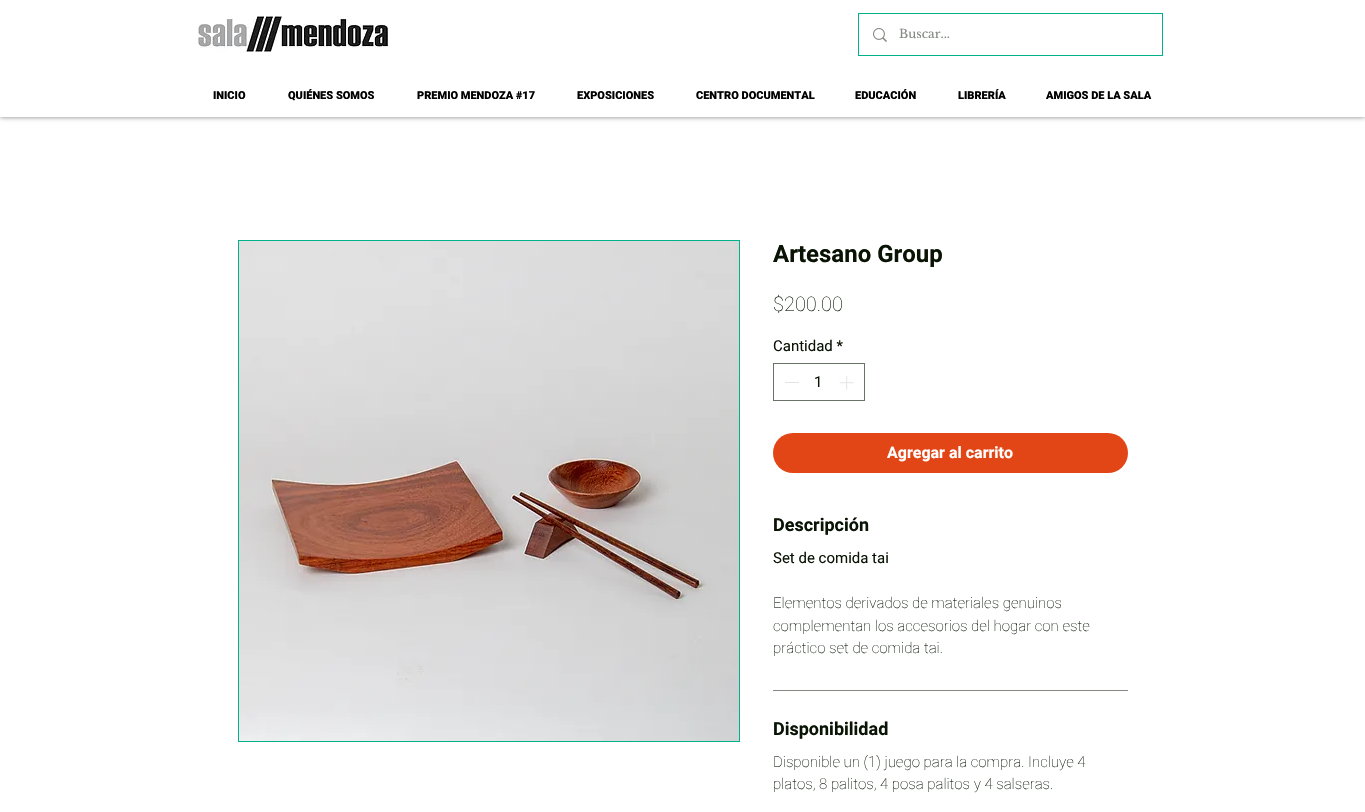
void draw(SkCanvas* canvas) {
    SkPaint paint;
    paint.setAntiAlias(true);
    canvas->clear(0xFFFFFFFF);
    paint.setColor(0x80000000);
    paint.setMaskFilter(SkMaskFilter::MakeBlur(kNormal_SkBlurStyle, 2.5f));
    canvas->drawRect(SkRect::MakeXYWH(0, 0, 1365, 117), paint);
    paint.setMaskFilter(nullptr);
    paint.setColor(0xFFFFFFFF);
    canvas->drawRect(SkRect::MakeXYWH(0, 0, 1365, 117), paint);
    canvas->drawImageRect(SkImages::DeferredFromEncodedData(SkData::MakeFromFileName("img1.png")), SkRect::MakeXYWH(197, 16, 191, 36), SkSamplingOptions());
    paint.setStyle(SkPaint::kStroke_Style);
    paint.setStrokeWidth(1);
    paint.setColor(0xFF00B18A);
    canvas->drawRect(SkRect::MakeXYWH(858.5f, 13.5f, 304, 42), paint);
    canvas->drawImageRect(SkImages::DeferredFromEncodedData(SkData::MakeFromFileName("img2.png")), SkRect::MakeXYWH(873, 28, 14, 14), SkSamplingOptions());
    SkFont font1(fontMgr->matchFamilyStyle("Libre Baskerville", SkFontStyle::Normal()), 12);
    font1.setSubpixel(true);
    paint.setStyle(SkPaint::kFill_Style);
    paint.setColor(0xFF848A82);
    canvas->drawString("Buscar...", 899, 38, font1, paint);
    SkFont font2(fontMgr->matchFamilyStyle("Roboto", SkFontStyle(900, SkFontStyle::kNormal_Width, SkFontStyle::kUpright_Slant)), 11);
    font2.setSubpixel(true);
    paint.setColor(0xFF000000);
    canvas->drawString("INICIO", 213, 99, font2, paint);
    canvas->drawString("QUIÉNES SOMOS", 288, 99, font2, paint);
    canvas->drawString("PREMIO MENDOZA #17", 417, 99, font2, paint);
    canvas->drawString("EXPOSICIONES", 577, 99, font2, paint);
    canvas->drawString("CENTRO DOCUMENTAL", 696, 99, font2, paint);
    canvas->drawString("EDUCACIÓN", 855, 99, font2, paint);
    canvas->drawString("LIBRERÍA", 958, 99, font2, paint);
    canvas->drawString("AMIGOS DE LA SALA", 1046, 99, font2, paint);
    paint.setStyle(SkPaint::kStroke_Style);
    paint.setColor(0xFF00B18A);
    canvas->drawRect(SkRect::MakeXYWH(238.5f, 240.5f, 501, 501), paint);
    canvas->drawImageRect(SkImages::DeferredFromEncodedData(SkData::MakeFromFileName("img3.png")), SkRect::MakeXYWH(239, 241, 500, 500), SkSamplingOptions());
    SkFont font3(fontMgr->matchFamilyStyle("Roboto", SkFontStyle::Bold()), 24);
    font3.setSubpixel(true);
    paint.setStyle(SkPaint::kFill_Style);
    paint.setColor(0xFF091405);
    canvas->drawString("Artesano Group", 773, 262, font3, paint);
    SkFont font4(fontMgr->matchFamilyStyle("Roboto", SkFontStyle(100, SkFontStyle::kNormal_Width, SkFontStyle::kUpright_Slant)), 20);
    font4.setSubpixel(true);
    canvas->drawString("$200.00", 773, 311, font4, paint);
    SkFont font5(fontMgr->matchFamilyStyle("Roboto", SkFontStyle::Normal()), 15);
    font5.setSubpixel(true);
    canvas->drawString("Cantidad *", 773, 351, font5, paint);
    paint.setStyle(SkPaint::kStroke_Style);
    paint.setColor(0xFF6B7269);
    canvas->drawRect(SkRect::MakeXYWH(773.5f, 363.5f, 91, 37), paint);
    paint.setStyle(SkPaint::kFill_Style);
    paint.setColor(0xFFE3E3E3);
    canvas->drawRect(SkRect::MakeXYWH(785, 382, 14, 1), paint);
    paint.setColor(0xFF091405);
    canvas->drawString("1", 814, 387, font5, paint);
    canvas->drawImageRect(SkImages::DeferredFromEncodedData(SkData::MakeFromFileName("img4.png")), SkRect::MakeXYWH(839, 375, 15, 15), SkSamplingOptions());
    paint.setColor(0xFFE34616);
    canvas->drawRoundRect(SkRect::MakeXYWH(773, 433, 355, 40), 20, 20, paint);
    SkFont font6(fontMgr->matchFamilyStyle("Roboto", SkFontStyle::Bold()), 16);
    font6.setSubpixel(true);
    paint.setColor(0xFFFFFFFF);
    canvas->drawString("Agregar al carrito", 887, 458, font6, paint);
    paint.setColor(0xFF848A82);
    canvas->drawRect(SkRect::MakeXYWH(773, 690, 355, 1), paint);
    SkFont font7(fontMgr->matchFamilyStyle("Roboto", SkFontStyle::Bold()), 18);
    font7.setSubpixel(true);
    paint.setColor(0xFF091405);
    canvas->drawString("Descripción", 773, 531, font7, paint);
    canvas->drawString("Set de comida tai", 773, 563, font5, paint);
    SkFont font8(fontMgr->matchFamilyStyle("Roboto", SkFontStyle(100, SkFontStyle::kNormal_Width, SkFontStyle::kUpright_Slant)), 15);
    font8.setSubpixel(true);
    canvas->drawString("Elementos derivados de materiales genuinos", 773, 608, font8, paint);
    canvas->drawString("complementan los accesorios del hogar con este", 773, 631, font8, paint);
    canvas->drawString("práctico set de comida tai.", 773, 653, font8, paint);
    canvas->drawString("Disponibilidad", 773, 735, font7, paint);
    canvas->drawString("Disponible un (1) juego para la compra. Incluye 4", 773, 767, font8, paint);
    canvas->drawString("platos, 8 palitos, 4 posa palitos y 4 salseras.", 773, 789, font8, paint);
}
